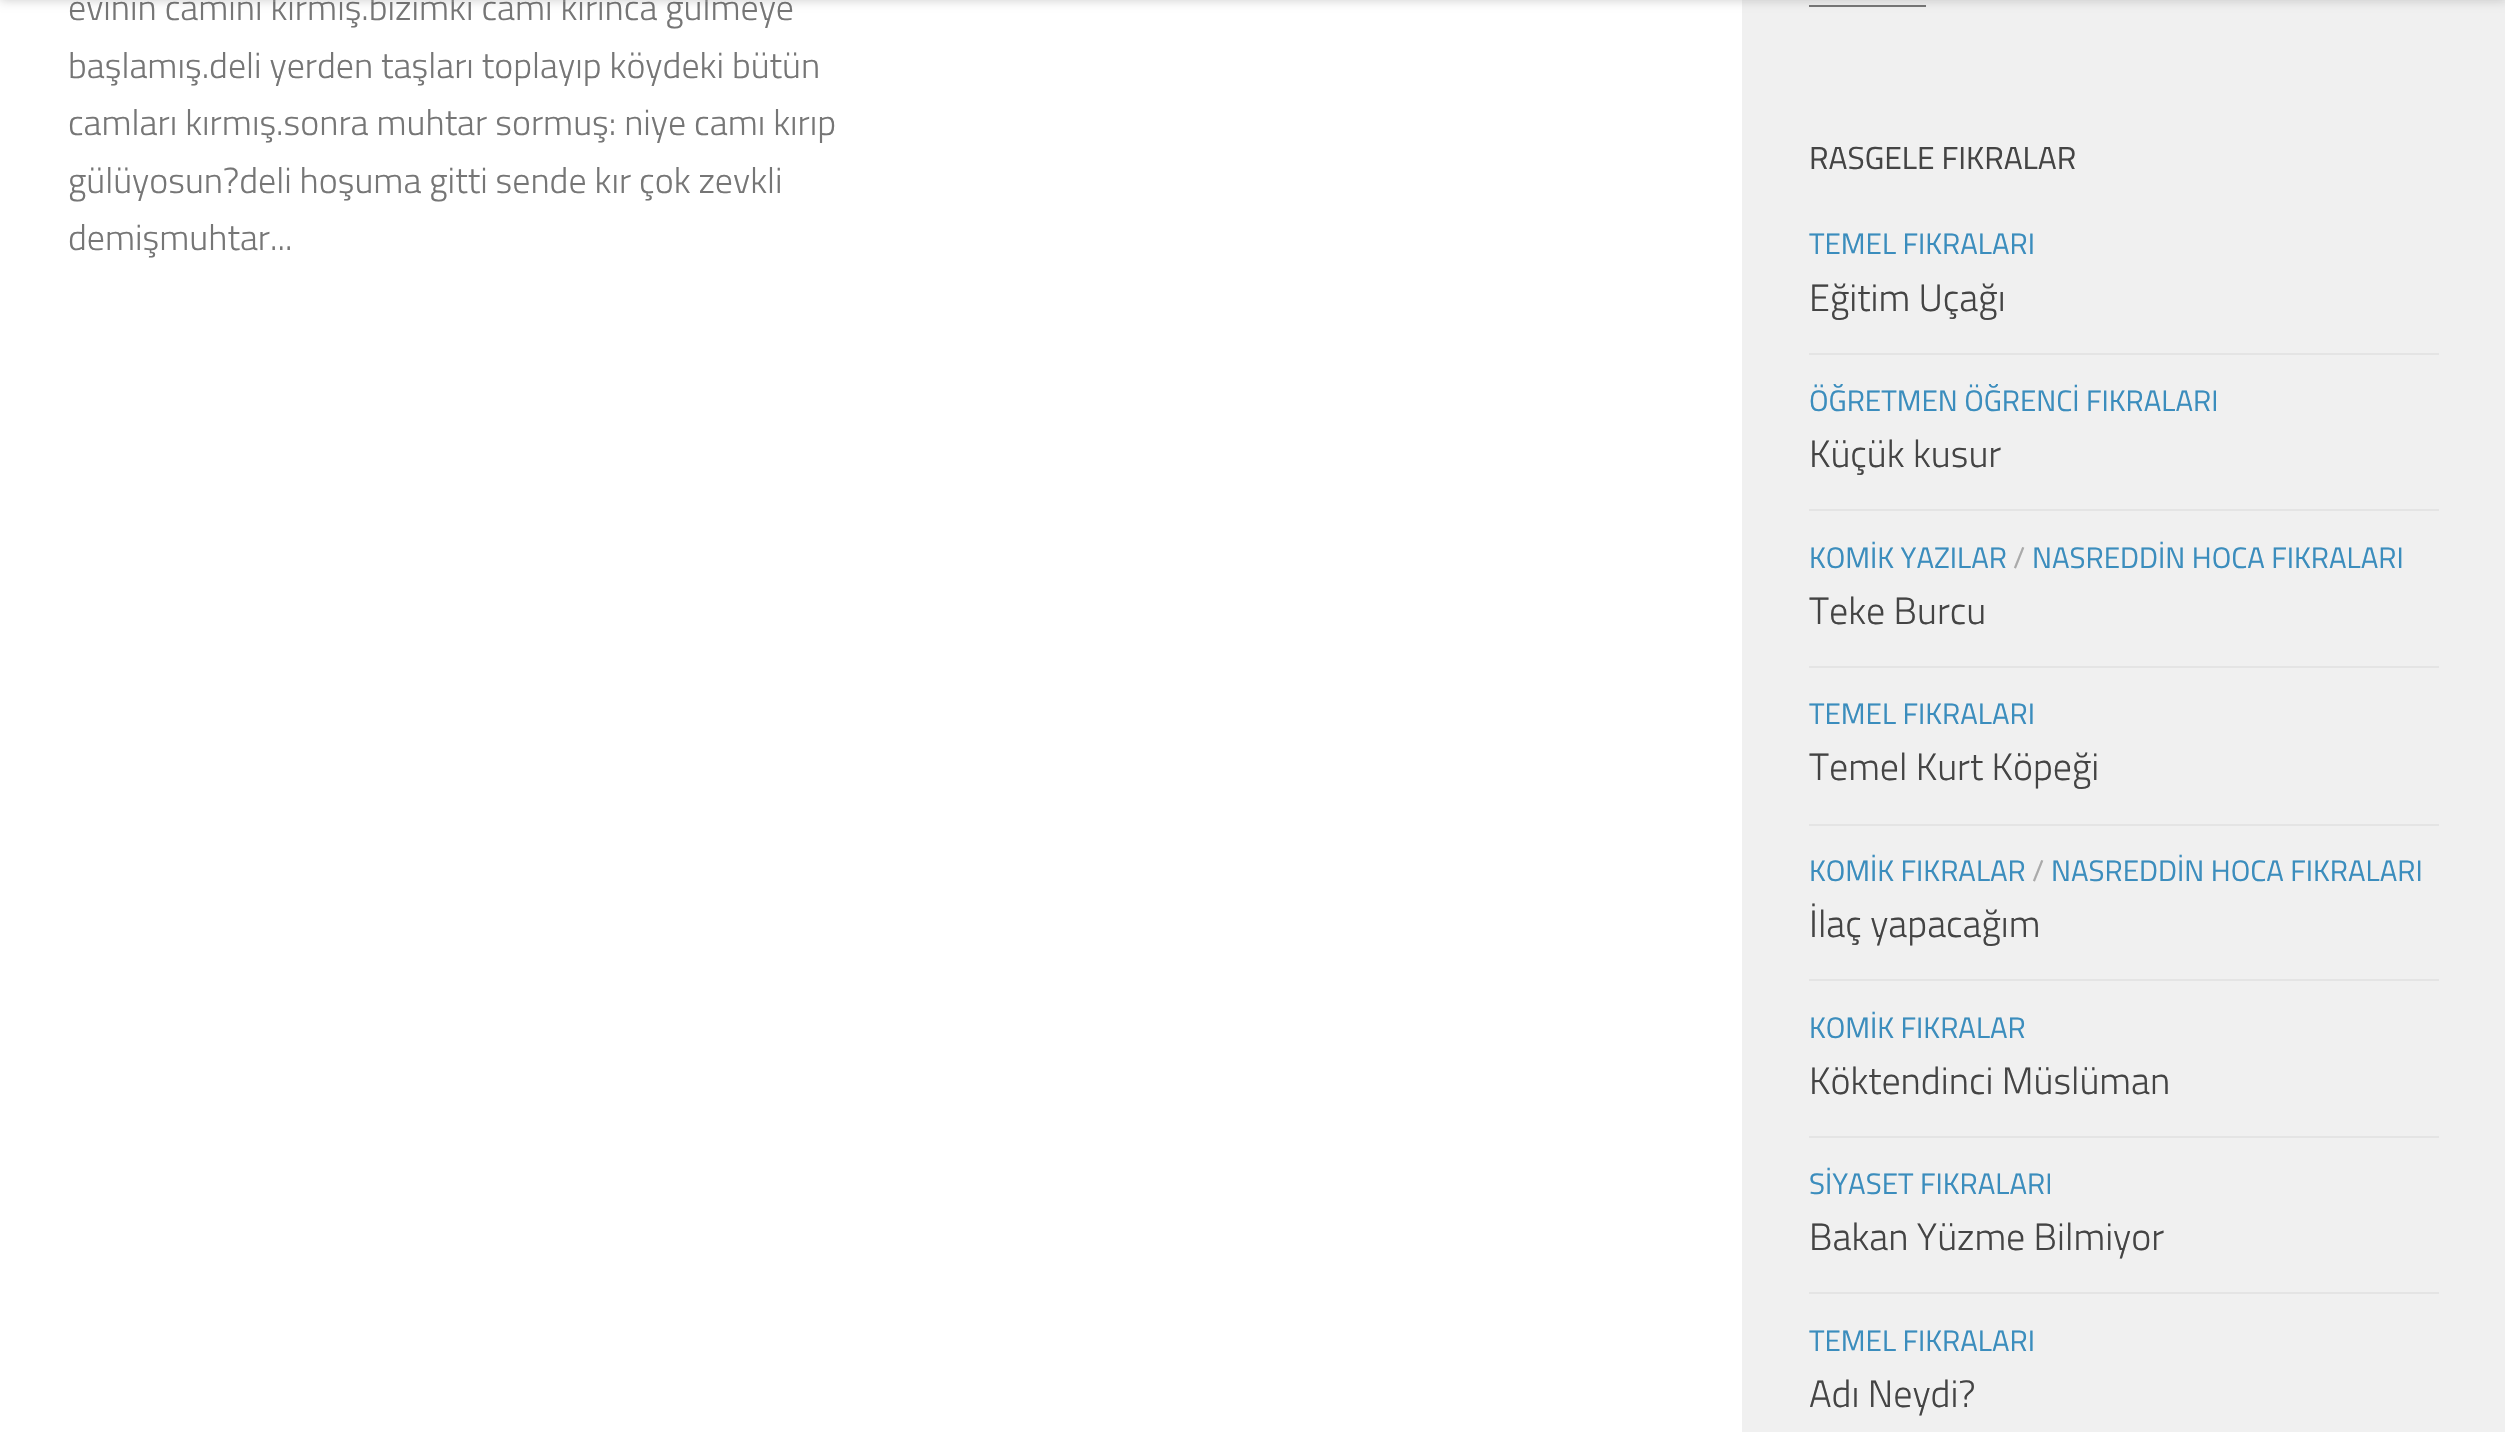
void draw(SkCanvas* canvas) {
    SkPaint paint;
    paint.setAntiAlias(true);
    canvas->clear(0xFFFFFFFF);
    SkFont font1(fontMgr->matchFamilyStyle("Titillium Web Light", SkFontStyle(300, SkFontStyle::kNormal_Width, SkFontStyle::kUpright_Slant)), 36);
    font1.setSubpixel(true);
    paint.setColor(0xFF767676);
    canvas->drawString("evinin camını kırmış.bizimki camı kırınca gülmeye", 68, 20, font1, paint);
    paint.setColor(0xFFF0F0F0);
    canvas->drawRect(SkRect::MakeXYWH(1742, 0, 763, 1432), paint);
    paint.setColor(0x26FFFFFF);
    canvas->drawPath(SkPathBuilder().moveTo(0, 0).lineTo(0, 2).lineTo(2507, 2).lineTo(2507, -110).lineTo(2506, -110).lineTo(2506, 0).close().detach(), paint);
    paint.setColor(0xFF777777);
    canvas->drawRect(SkRect::MakeXYWH(1809, 5, 117, 2), paint);
    paint.setColor(0x33000000);
    paint.setMaskFilter(SkMaskFilter::MakeBlur(kNormal_SkBlurStyle, 5.5f));
    canvas->drawRect(SkRect::MakeXYWH(0, -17, 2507, 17), paint);
    paint.setMaskFilter(nullptr);
    paint.setColor(0xFF767676);
    canvas->drawString("başlamış.deli yerden taşları toplayıp köydeki bütün", 68, 78, font1, paint);
    canvas->drawString("camları kırmış.sonra muhtar sormuş: niye camı kırıp", 68, 135, font1, paint);
    canvas->drawString("gülüyosun?deli hoşuma gitti sende kır çok zevkli", 68, 193, font1, paint);
    canvas->drawString("demişmuhtar...", 68, 250, font1, paint);
    SkFont font2(fontMgr->matchFamilyStyle("Titillium Web", SkFontStyle::Normal()), 31.75f);
    font2.setSubpixel(true);
    paint.setColor(0xFF444444);
    canvas->drawString("RASGELE FIKRALAR", 1809, 169, font2, paint);
    paint.setColor(0xFFE4E4E4);
    canvas->drawRect(SkRect::MakeXYWH(1809, 353, 630, 2), paint);
    SkFont font3(fontMgr->matchFamilyStyle("Titillium Web", SkFontStyle::Normal()), 29.5f);
    font3.setSubpixel(true);
    paint.setColor(0xFF3B8DBD);
    canvas->drawString("TEMEL FIKRALARI", 1809, 254, font3, paint);
    SkFont font4(fontMgr->matchFamilyStyle("Titillium Web Light", SkFontStyle(300, SkFontStyle::kNormal_Width, SkFontStyle::kUpright_Slant)), 38);
    font4.setSubpixel(true);
    paint.setColor(0xFF444444);
    canvas->drawString("Eğitim Uçağı", 1809, 311, font4, paint);
    paint.setColor(0xFFE4E4E4);
    canvas->drawRect(SkRect::MakeXYWH(1809, 509, 630, 2), paint);
    paint.setColor(0xFF3B8DBD);
    canvas->drawString("ÖĞRETMEN ÖĞRENCİ FIKRALARI", 1809, 411, font3, paint);
    paint.setColor(0xFF444444);
    canvas->drawString("Küçük kusur", 1809, 467, font4, paint);
    paint.setColor(0xFFE4E4E4);
    canvas->drawRect(SkRect::MakeXYWH(1809, 666, 630, 2), paint);
    paint.setColor(0xFF3B8DBD);
    canvas->drawString("KOMİK YAZILAR", 1809, 568, font3, paint);
    paint.setColor(0xFFAAAAAA);
    canvas->drawString("/", 2013, 568, font3, paint);
    paint.setColor(0xFF3B8DBD);
    canvas->drawString("NASREDDİN HOCA FIKRALARI", 2032, 568, font3, paint);
    paint.setColor(0xFF444444);
    canvas->drawString("Teke Burcu", 1809, 624, font4, paint);
    paint.setColor(0xFFE4E4E4);
    canvas->drawRect(SkRect::MakeXYWH(1809, 824, 630, 2), paint);
    paint.setColor(0xFF3B8DBD);
    canvas->drawString("TEMEL FIKRALARI", 1809, 724, font3, paint);
    paint.setColor(0xFF444444);
    canvas->drawString("Temel Kurt Köpeği", 1809, 780, font4, paint);
    paint.setColor(0xFFE4E4E4);
    canvas->drawRect(SkRect::MakeXYWH(1809, 979, 630, 2), paint);
    paint.setColor(0xFF3B8DBD);
    canvas->drawString("KOMİK FIKRALAR", 1809, 881, font3, paint);
    paint.setColor(0xFFAAAAAA);
    canvas->drawString("/", 2032, 881, font3, paint);
    paint.setColor(0xFF3B8DBD);
    canvas->drawString("NASREDDİN HOCA FIKRALARI", 2051, 881, font3, paint);
    paint.setColor(0xFF444444);
    canvas->drawString("İlaç yapacağım", 1809, 937, font4, paint);
    paint.setColor(0xFFE4E4E4);
    canvas->drawRect(SkRect::MakeXYWH(1809, 1136, 630, 2), paint);
    paint.setColor(0xFF3B8DBD);
    canvas->drawString("KOMİK FIKRALAR", 1809, 1038, font3, paint);
    paint.setColor(0xFF444444);
    canvas->drawString("Köktendinci Müslüman", 1809, 1094, font4, paint);
    paint.setColor(0xFFE4E4E4);
    canvas->drawRect(SkRect::MakeXYWH(1809, 1292, 630, 2), paint);
    paint.setColor(0xFF3B8DBD);
    canvas->drawString("SİYASET FIKRALARI", 1809, 1194, font3, paint);
    paint.setColor(0xFF444444);
    canvas->drawString("Bakan Yüzme Bilmiyor", 1809, 1250, font4, paint);
    paint.setColor(0xFF3B8DBD);
    canvas->drawString("TEMEL FIKRALARI", 1809, 1351, font3, paint);
    paint.setColor(0xFF444444);
    canvas->drawString("Adı Neydi?", 1809, 1407, font4, paint);
}
